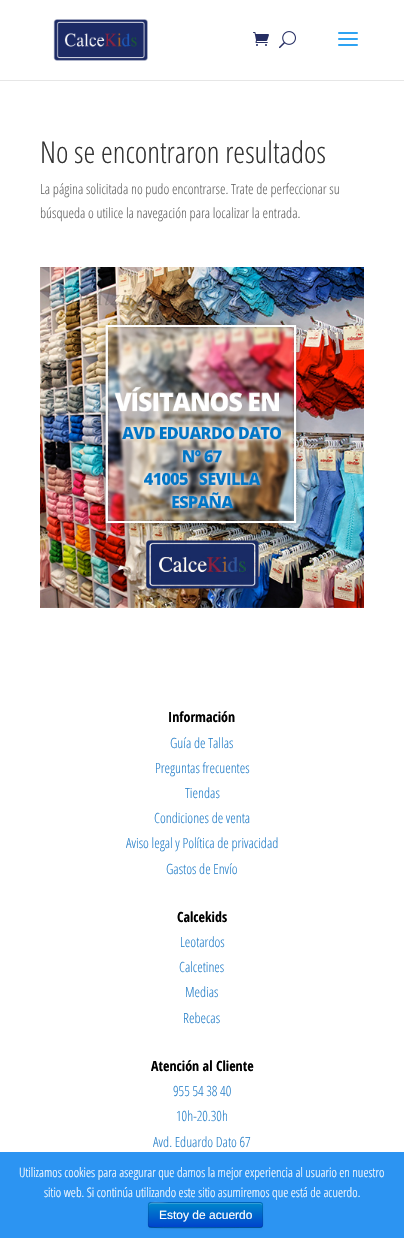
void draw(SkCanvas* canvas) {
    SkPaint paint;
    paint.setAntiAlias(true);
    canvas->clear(0xFFFFFFFF);
    paint.setColor(0xFFE6E6E6);
    canvas->drawRect(SkRect::MakeXYWH(0, 80, 404, 1), paint);
    canvas->drawImageRect(SkImages::DeferredFromEncodedData(SkData::MakeFromFileName("img1.png")), SkRect::MakeXYWH(53, 19, 95, 42), SkSamplingOptions());
    canvas->drawImageRect(SkImages::DeferredFromEncodedData(SkData::MakeFromFileName("img2.png")), SkRect::MakeXYWH(253, 32, 16, 14), SkSamplingOptions());
    canvas->drawImageRect(SkImages::DeferredFromEncodedData(SkData::MakeFromFileName("img3.png")), SkRect::MakeXYWH(279, 31, 17, 18), SkSamplingOptions());
    canvas->drawImageRect(SkImages::DeferredFromEncodedData(SkData::MakeFromFileName("img4.png")), SkRect::MakeXYWH(338, 32, 20, 14), SkSamplingOptions());
    SkFont font1(fontMgr->matchFamilyStyle("Open Sans Condensed", SkFontStyle(300, SkFontStyle::kNormal_Width, SkFontStyle::kUpright_Slant)), 30);
    font1.setSubpixel(true);
    paint.setColor(0xFF333333);
    canvas->drawString("No se encontraron resultados", 40, 163, font1, paint);
    SkFont font2(fontMgr->matchFamilyStyle("Open Sans Condensed", SkFontStyle(300, SkFontStyle::kNormal_Width, SkFontStyle::kUpright_Slant)), 14);
    font2.setSubpixel(true);
    paint.setColor(0xFF666666);
    canvas->drawString("La página solicitada no pudo encontrarse. Trate de perfeccionar su", 40, 194, font2, paint);
    canvas->drawString("búsqueda o utilice la navegación para localizar la entrada.", 40, 218, font2, paint);
    canvas->drawImageRect(SkImages::DeferredFromEncodedData(SkData::MakeFromFileName("img5.png")), SkRect::MakeXYWH(40, 267, 324, 341), SkSamplingOptions());
    SkFont font3(fontMgr->matchFamilyStyle("Open Sans Condensed", SkFontStyle::Bold()), 14);
    font3.setSubpixel(true);
    paint.setColor(0xFF000000);
    canvas->drawString("Información", 168, 722, font3, paint);
    paint.setColor(0xFF2B82CA);
    canvas->drawString("Guía de Tallas", 170, 748, font2, paint);
    canvas->drawString("Preguntas frecuentes", 155, 773, font2, paint);
    canvas->drawString("Tiendas", 185, 798, font2, paint);
    canvas->drawString("Condiciones de venta", 154, 823, font2, paint);
    canvas->drawString("Aviso legal y Política de privacidad", 126, 848, font2, paint);
    canvas->drawString("Gastos de Envío", 166, 874, font2, paint);
    paint.setColor(0xFF000000);
    canvas->drawString("Calcekids", 177, 922, font3, paint);
    paint.setColor(0xFF2B82CA);
    canvas->drawString("Leotardos", 180, 947, font2, paint);
    canvas->drawString("Calcetines", 179, 972, font2, paint);
    canvas->drawString("Medias", 185, 997, font2, paint);
    canvas->drawString("Rebecas", 183, 1023, font2, paint);
    paint.setColor(0xFF000000);
    canvas->drawString("Atención al Cliente", 151, 1071, font3, paint);
    paint.setColor(0xFF2B82CA);
    canvas->drawString("955 54 38 40", 173, 1096, font2, paint);
    canvas->drawString("10h-20.30h", 176, 1121, font2, paint);
    canvas->drawString("Avd. Eduardo Dato 67", 153, 1147, font2, paint);
    paint.setColor(0xFF2C94F2);
    canvas->drawRect(SkRect::MakeXYWH(0, 1152, 404, 86), paint);
    SkFont font4(fontMgr->matchFamilyStyle("Open Sans Condensed", SkFontStyle(300, SkFontStyle::kNormal_Width, SkFontStyle::kUpright_Slant)), 13);
    font4.setSubpixel(true);
    paint.setColor(0xFFFFFFFF);
    canvas->drawString("Utilizamos cookies para asegurar que damos la mejor experiencia al usuario en nuestro", 19, 1177, font4, paint);
    canvas->drawString("sitio web. Si continúa utilizando este sitio asumiremos que está de acuerdo.", 44, 1197, font4, paint);
    paint.setColor(0x0D000000);
    paint.setMaskFilter(SkMaskFilter::MakeBlur(kNormal_SkBlurStyle, 1));
    canvas->drawRoundRect(SkRect::MakeXYWH(148, 1203, 115, 26), 3, 3, paint);
    paint.setMaskFilter(nullptr);
    paint.setColor(0xFF006DCC);
    canvas->drawRoundRect(SkRect::MakeXYWH(148, 1202, 115, 26), 3, 3, paint);
    canvas->save();
    canvas->clipPath(SkPathBuilder().moveTo(151, 1202).lineTo(260, 1202).cubicTo(261.5f, 1202, 263, 1203.5f, 263, 1205).lineTo(263, 1225).cubicTo(263, 1226.5f, 261.5f, 1228, 260, 1228).lineTo(151, 1228).cubicTo(149.5f, 1228, 148, 1226.5f, 148, 1225).lineTo(148, 1205).cubicTo(148, 1203.5f, 149.5f, 1202, 151, 1202).close().detach(), true);
    {
        const SkColor colors[] = {0xFF0088CC, 0xFF0044CC};
        const float stops[] = {0, 1};
        const SkPoint ends[] = {{206, 1203}, {206, 1227}};
        paint.setShader(SkGradientShader::MakeLinear(ends, colors, stops, 2, SkTileMode::kClamp));
        paint.setAlpha(255);
    }
    canvas->drawRect(SkRect::MakeXYWH(148, 1203, 115, 24), paint);
    canvas->restore();
    paint.setShader(nullptr);
    paint.setColor(0x33FFFFFF);
    canvas->drawPath(SkPathBuilder().moveTo(151, 1204).lineTo(260, 1204).cubicTo(261, 1204, 262, 1205, 262, 1206).cubicTo(262, 1205, 262, 1203, 260, 1203).lineTo(169, 1203).cubicTo(163, 1203, 149, 1199, 149, 1206).cubicTo(149, 1205, 150, 1204, 151, 1204).close().detach(), paint);
    paint.setStyle(SkPaint::kStroke_Style);
    paint.setStrokeWidth(1);
    paint.setColor(0x40000000);
    canvas->drawPath(SkPathBuilder().moveTo(262, 1227).lineTo(260, 1227.5f).lineTo(242, 1227.5f).cubicTo(232.5f, 1227.5f, 151.5f, 1228.5f, 149.5f, 1227).lineTo(149, 1227).detach(), paint);
    paint.setColor(0x1A000000);
    canvas->drawPath(SkPathBuilder().moveTo(149, 1227).cubicTo(147.5f, 1225, 148.5f, 1217.5f, 148.5f, 1215).lineTo(148.5f, 1208.5f).cubicTo(148.5f, 1206.5f, 148, 1202.5f, 151, 1202.5f).lineTo(260, 1202.5f).cubicTo(263, 1202.5f, 262.5f, 1206.5f, 262.5f, 1208.5f).lineTo(262.5f, 1215).cubicTo(262.5f, 1217.5f, 263.5f, 1225, 262, 1227).detach(), paint);
    SkFont font5(fontMgr->matchFamilyStyle("Liberation Sans", SkFontStyle::Normal()), 12);
    font5.setSubpixel(true);
    paint.setStyle(SkPaint::kFill_Style);
    paint.setColor(0xFFFFFFFF);
    canvas->drawString("Estoy de acuerdo", 159, 1219, font5, paint);
}
